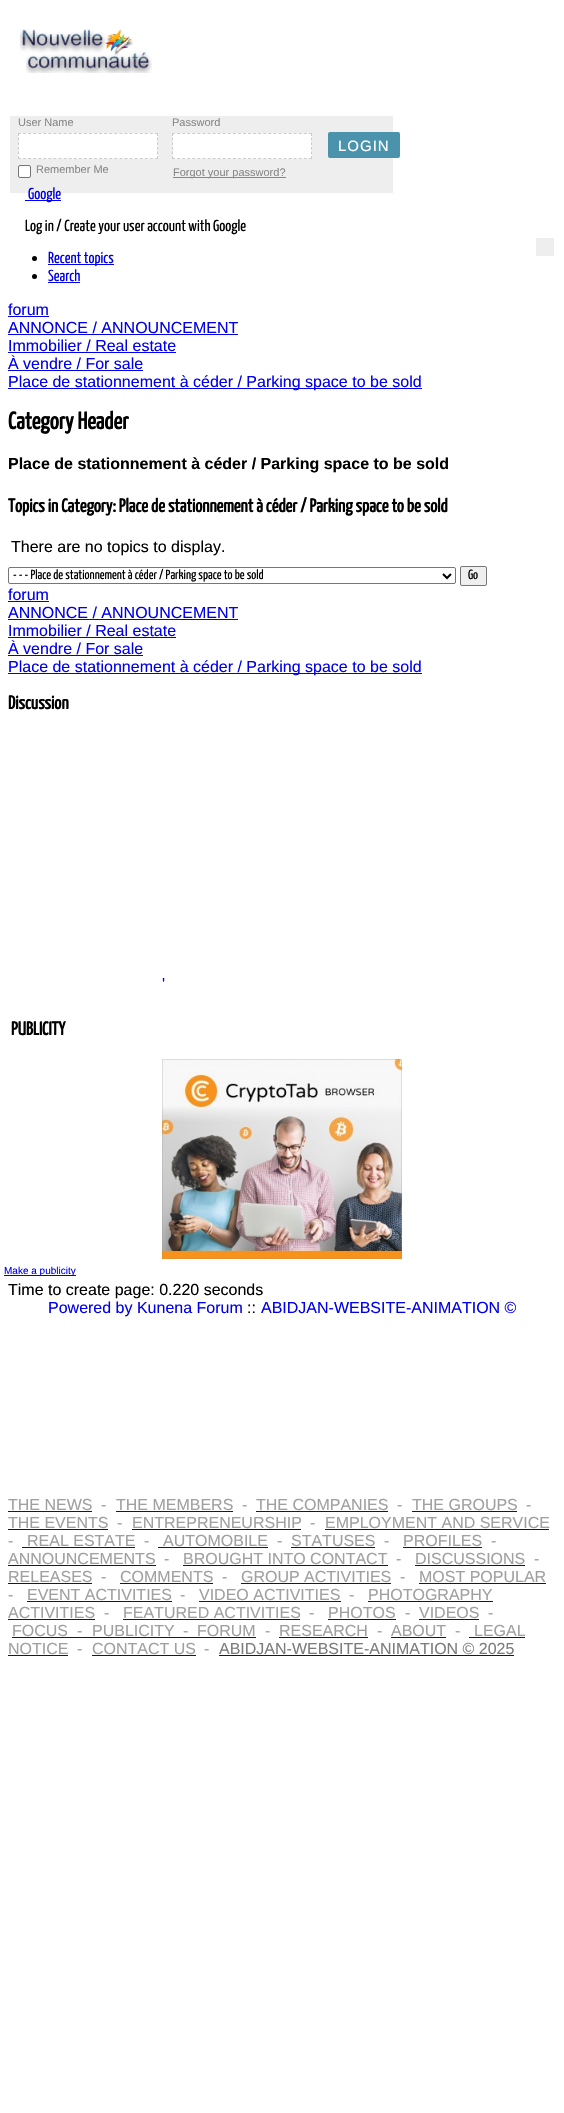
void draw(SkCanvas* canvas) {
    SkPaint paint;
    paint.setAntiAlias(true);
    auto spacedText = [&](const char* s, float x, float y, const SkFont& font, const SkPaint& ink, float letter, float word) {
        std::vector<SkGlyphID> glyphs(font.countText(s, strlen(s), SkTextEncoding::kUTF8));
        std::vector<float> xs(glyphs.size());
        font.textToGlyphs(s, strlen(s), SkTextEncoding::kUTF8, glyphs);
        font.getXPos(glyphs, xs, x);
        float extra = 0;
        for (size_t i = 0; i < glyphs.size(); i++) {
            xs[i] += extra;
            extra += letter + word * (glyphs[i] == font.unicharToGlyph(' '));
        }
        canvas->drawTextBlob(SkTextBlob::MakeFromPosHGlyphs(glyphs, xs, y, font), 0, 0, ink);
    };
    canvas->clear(0xFFFFFFFF);
    canvas->drawImageRect(SkImages::DeferredFromEncodedData(SkData::MakeFromFileName("img1.png")), SkRect::MakeXYWH(20, 29, 132, 44), SkSamplingOptions());
    paint.setColor(0xFFEEEEEE);
    canvas->drawRect(SkRect::MakeXYWH(10, 116, 383, 77), paint);
    SkFont font1(fontMgr->matchFamilyStyle("Liberation Sans", SkFontStyle::Normal()), 11);
    font1.setSubpixel(true);
    paint.setColor(0xFF888888);
    canvas->drawString("User Name", 18, 126, font1, paint);
    canvas->drawString("Password", 172, 126, font1, paint);
    paint.setColor(0xFFFFFFFF);
    canvas->drawRect(SkRect::MakeXYWH(18, 133, 140, 26), paint);
    paint.setStyle(SkPaint::kStroke_Style);
    paint.setStrokeWidth(1);
    paint.setColor(0xFFCCCCCC);
    paint.setPathEffect(SkDashPathEffect::Make({{3, 2.07f}}, 0));
    canvas->drawPath(SkPathBuilder().moveTo(18, 133.5f).lineTo(158, 133.5f).detach(), paint);
    paint.setPathEffect(nullptr);
    paint.setPathEffect(SkDashPathEffect::Make({{3, 1.6f}}, 0));
    canvas->drawPath(SkPathBuilder().moveTo(157.5f, 133).lineTo(157.5f, 159).detach(), paint);
    paint.setPathEffect(nullptr);
    paint.setPathEffect(SkDashPathEffect::Make({{3, 2.07f}}, 0));
    canvas->drawPath(SkPathBuilder().moveTo(18, 158.5f).lineTo(158, 158.5f).detach(), paint);
    paint.setPathEffect(nullptr);
    paint.setPathEffect(SkDashPathEffect::Make({{3, 1.6f}}, 0));
    canvas->drawPath(SkPathBuilder().moveTo(18.5f, 133).lineTo(18.5f, 159).detach(), paint);
    paint.setPathEffect(nullptr);
    paint.setStyle(SkPaint::kFill_Style);
    paint.setColor(0xFFFFFFFF);
    canvas->drawRect(SkRect::MakeXYWH(172, 133, 140, 26), paint);
    paint.setStyle(SkPaint::kStroke_Style);
    paint.setColor(0xFFCCCCCC);
    paint.setPathEffect(SkDashPathEffect::Make({{3, 2.07f}}, 0));
    canvas->drawPath(SkPathBuilder().moveTo(172, 133.5f).lineTo(312, 133.5f).detach(), paint);
    paint.setPathEffect(nullptr);
    paint.setPathEffect(SkDashPathEffect::Make({{3, 1.6f}}, 0));
    canvas->drawPath(SkPathBuilder().moveTo(311.5f, 133).lineTo(311.5f, 159).detach(), paint);
    paint.setPathEffect(nullptr);
    paint.setPathEffect(SkDashPathEffect::Make({{3, 2.07f}}, 0));
    canvas->drawPath(SkPathBuilder().moveTo(172, 158.5f).lineTo(312, 158.5f).detach(), paint);
    paint.setPathEffect(nullptr);
    paint.setPathEffect(SkDashPathEffect::Make({{3, 1.6f}}, 0));
    canvas->drawPath(SkPathBuilder().moveTo(172.5f, 133).lineTo(172.5f, 159).detach(), paint);
    paint.setPathEffect(nullptr);
    paint.setStyle(SkPaint::kFill_Style);
    paint.setColor(0xFF4B93AD);
    canvas->drawRoundRect(SkRect::MakeXYWH(328, 132, 72, 26), 2, 2, paint);
    SkFont font2(fontMgr->matchFamilyStyle("Liberation Sans", SkFontStyle::Normal()), 15);
    font2.setSubpixel(true);
    paint.setColor(0xFFFFFFFF);
    spacedText("LOGIN", 338, 151, font2, paint, 1, 0);
    canvas->drawRoundRect(SkRect::MakeXYWH(18.5f, 165.5f, 12, 12), 1.5f, 1.5f, paint);
    paint.setStyle(SkPaint::kStroke_Style);
    paint.setColor(0xFF767676);
    canvas->drawRoundRect(SkRect::MakeXYWH(18.5f, 165.5f, 12, 12), 1.5f, 1.5f, paint);
    paint.setStyle(SkPaint::kFill_Style);
    paint.setColor(0xFF888888);
    canvas->drawString("Remember Me", 36, 173, font1, paint);
    canvas->drawRect(SkRect::MakeXYWH(173, 177, 113, 1), paint);
    canvas->drawString("Forgot your password?", 173, 176, font1, paint);
    paint.setColor(0xFF0000EE);
    canvas->drawRect(SkRect::MakeXYWH(25, 200, 36, 1), paint);
    SkFont font3(fontMgr->matchFamilyStyle("Yanone Kaffeesatz", SkFontStyle(200, SkFontStyle::kNormal_Width, SkFontStyle::kUpright_Slant)), 16);
    font3.setSubpixel(true);
    canvas->drawString("Google", 28, 199, font3, paint);
    paint.setColor(0xFF000000);
    canvas->drawString("Log in / Create your user account with Google", 25, 231, font3, paint);
    paint.setColor(0xFFEEEEEE);
    canvas->drawRect(SkRect::MakeXYWH(536, 238, 18, 18), paint);
    paint.setColor(0xFF000000);
    canvas->drawCircle(34.5f, 258.5f, 2.5f, paint);
    paint.setColor(0xFF0000EE);
    canvas->drawRect(SkRect::MakeXYWH(48, 264, 66, 1), paint);
    canvas->drawString("Recent topics", 48, 263, font3, paint);
    paint.setColor(0xFF000000);
    canvas->drawCircle(34.5f, 276.5f, 2.5f, paint);
    paint.setColor(0xFF0000EE);
    canvas->drawString("Search", 48, 281, font3, paint);
    canvas->drawRect(SkRect::MakeXYWH(48, 282, 32, 1), paint);
    SkFont font4(fontMgr->matchFamilyStyle("Liberation Sans", SkFontStyle::Normal()), 16);
    font4.setSubpixel(true);
    canvas->drawString("forum", 8, 315, font4, paint);
    canvas->drawRect(SkRect::MakeXYWH(8, 316, 41, 1), paint);
    canvas->drawString("ANNONCE / ANNOUNCEMENT", 8, 333, font4, paint);
    canvas->drawRect(SkRect::MakeXYWH(8, 334, 230, 1), paint);
    canvas->drawString("Immobilier / Real estate", 8, 351, font4, paint);
    canvas->drawRect(SkRect::MakeXYWH(8, 352, 168, 1), paint);
    canvas->drawString("À vendre / For sale", 8, 369, font4, paint);
    canvas->drawRect(SkRect::MakeXYWH(8, 370, 135, 1), paint);
    canvas->drawRect(SkRect::MakeXYWH(8, 388, 414, 1), paint);
    canvas->drawString("Place de stationnement à céder / Parking space to be sold", 8, 387, font4, paint);
    SkFont font5(fontMgr->matchFamilyStyle("Yanone Kaffeesatz", SkFontStyle::Bold()), 24);
    font5.setSubpixel(true);
    paint.setColor(0xFF000000);
    canvas->drawString("Category Header", 8, 429, font5, paint);
    SkFont font6(fontMgr->matchFamilyStyle("Liberation Sans", SkFontStyle::Bold()), 16);
    font6.setSubpixel(true);
    canvas->drawString("Place de stationnement à céder / Parking space to be sold", 8, 469, font6, paint);
    SkFont font7(fontMgr->matchFamilyStyle("Yanone Kaffeesatz", SkFontStyle::Bold()), 18.75f);
    font7.setSubpixel(true);
    canvas->drawString("Topics in Category: Place de stationnement à céder / Parking space to be sold", 8, 512, font7, paint);
    canvas->drawString("There are no topics to display.", 11, 552, font4, paint);
    paint.setStyle(SkPaint::kStroke_Style);
    paint.setColor(0xFF767676);
    canvas->drawRoundRect(SkRect::MakeXYWH(8.5f, 567.5f, 447, 16), 1.5f, 1.5f, paint);
    paint.setStrokeWidth(2);
    paint.setColor(0xFF000000);
    canvas->drawPath(SkPathBuilder().moveTo(443, 574).lineTo(447, 578).lineTo(451, 574).detach(), paint);
    SkFont font8(fontMgr->matchFamilyStyle("Yanone Kaffeesatz", SkFontStyle(200, SkFontStyle::kNormal_Width, SkFontStyle::kUpright_Slant)), 13.3f);
    font8.setSubpixel(true);
    paint.setStyle(SkPaint::kFill_Style);
    canvas->drawString("- - - Place de stationnement à céder / Parking space to be sold", 13, 579, font8, paint);
    paint.setColor(0xFFEFEFEF);
    canvas->drawRoundRect(SkRect::MakeXYWH(460.5f, 566.5f, 26, 19), 1.5f, 1.5f, paint);
    paint.setStyle(SkPaint::kStroke_Style);
    paint.setStrokeWidth(1);
    paint.setColor(0xFF767676);
    canvas->drawRoundRect(SkRect::MakeXYWH(460.5f, 566.5f, 26, 19), 1.5f, 1.5f, paint);
    paint.setStyle(SkPaint::kFill_Style);
    paint.setColor(0xFF000000);
    canvas->drawString("Go", 468, 579, font8, paint);
    paint.setColor(0xFF0000EE);
    canvas->drawString("forum", 8, 600, font4, paint);
    canvas->drawRect(SkRect::MakeXYWH(8, 601, 41, 1), paint);
    canvas->drawString("ANNONCE / ANNOUNCEMENT", 8, 618, font4, paint);
    canvas->drawRect(SkRect::MakeXYWH(8, 619, 230, 1), paint);
    canvas->drawString("Immobilier / Real estate", 8, 636, font4, paint);
    canvas->drawRect(SkRect::MakeXYWH(8, 637, 168, 1), paint);
    canvas->drawString("À vendre / For sale", 8, 654, font4, paint);
    canvas->drawRect(SkRect::MakeXYWH(8, 655, 135, 1), paint);
    canvas->drawRect(SkRect::MakeXYWH(8, 673, 414, 1), paint);
    canvas->drawString("Place de stationnement à céder / Parking space to be sold", 8, 672, font4, paint);
    paint.setColor(0xFF000000);
    canvas->drawString("Discussion", 8, 709, font7, paint);
    paint.setColor(0xFF0000EE);
    canvas->drawString("'", 162, 989, font4, paint);
    paint.setColor(0xFF000000);
    canvas->drawString("PUBLICITY", 11, 1035, font7, paint);
    canvas->drawImageRect(SkImages::DeferredFromEncodedData(SkData::MakeFromFileName("img2.png")), SkRect::MakeXYWH(162, 1059, 240, 200), SkSamplingOptions());
    paint.setColor(0xFF0000EE);
    canvas->drawRect(SkRect::MakeXYWH(4, 1275, 72, 1), paint);
    SkFont font9(fontMgr->matchFamilyStyle("Liberation Sans", SkFontStyle::Normal()), 10);
    font9.setSubpixel(true);
    canvas->drawString("Make a publicity", 4, 1274, font9, paint);
    paint.setColor(0xFF000000);
    canvas->drawString("Time to create page: 0.220 seconds", 8, 1295, font4, paint);
    paint.setColor(0xFF0000EE);
    canvas->drawString("Powered by Kunena Forum", 48, 1313, font4, paint);
    paint.setColor(0xFF000000);
    canvas->drawString("::", 247, 1313, font4, paint);
    paint.setColor(0xFF0000EE);
    canvas->drawString("ABIDJAN-WEBSITE-ANIMATION ©", 261, 1313, font4, paint);
    paint.setColor(0xFFA0A0A0);
    canvas->drawString("THE NEWS", 8, 1510, font4, paint);
    paint.setColor(0xFF0000EE);
    canvas->drawRect(SkRect::MakeXYWH(8, 1511, 84, 1), paint);
    paint.setColor(0xFFA0A0A0);
    canvas->drawString("-", 101, 1510, font4, paint);
    canvas->drawString("THE MEMBERS", 116, 1510, font4, paint);
    paint.setColor(0xFF0000EE);
    canvas->drawRect(SkRect::MakeXYWH(116, 1511, 117, 1), paint);
    paint.setColor(0xFFA0A0A0);
    canvas->drawString("-", 242, 1510, font4, paint);
    canvas->drawString("THE COMPANIES", 256, 1510, font4, paint);
    paint.setColor(0xFF0000EE);
    canvas->drawRect(SkRect::MakeXYWH(256, 1511, 132, 1), paint);
    paint.setColor(0xFFA0A0A0);
    canvas->drawString("-", 397, 1510, font4, paint);
    canvas->drawString("THE GROUPS", 412, 1510, font4, paint);
    paint.setColor(0xFF0000EE);
    canvas->drawRect(SkRect::MakeXYWH(412, 1511, 105, 1), paint);
    paint.setColor(0xFFA0A0A0);
    canvas->drawString("-", 526, 1510, font4, paint);
    canvas->drawString("THE EVENTS", 8, 1528, font4, paint);
    paint.setColor(0xFF0000EE);
    canvas->drawRect(SkRect::MakeXYWH(8, 1529, 100, 1), paint);
    paint.setColor(0xFFA0A0A0);
    canvas->drawString("-", 117, 1528, font4, paint);
    canvas->drawString("ENTREPRENEURSHIP", 132, 1528, font4, paint);
    paint.setColor(0xFF0000EE);
    canvas->drawRect(SkRect::MakeXYWH(132, 1529, 169, 1), paint);
    paint.setColor(0xFFA0A0A0);
    canvas->drawString("-", 310, 1528, font4, paint);
    canvas->drawString("EMPLOYMENT AND SERVICE", 325, 1528, font4, paint);
    paint.setColor(0xFF0000EE);
    canvas->drawRect(SkRect::MakeXYWH(325, 1529, 224, 1), paint);
    paint.setColor(0xFFA0A0A0);
    canvas->drawString("-", 8, 1546, font4, paint);
    canvas->drawString("REAL ESTATE", 27, 1546, font4, paint);
    paint.setColor(0xFF0000EE);
    canvas->drawRect(SkRect::MakeXYWH(22, 1547, 113, 1), paint);
    paint.setColor(0xFFA0A0A0);
    canvas->drawString("-", 144, 1546, font4, paint);
    canvas->drawString("AUTOMOBILE", 163, 1546, font4, paint);
    paint.setColor(0xFF0000EE);
    canvas->drawRect(SkRect::MakeXYWH(158, 1547, 110, 1), paint);
    paint.setColor(0xFFA0A0A0);
    canvas->drawString("-", 277, 1546, font4, paint);
    canvas->drawString("STATUSES", 291, 1546, font4, paint);
    paint.setColor(0xFF0000EE);
    canvas->drawRect(SkRect::MakeXYWH(291, 1547, 84, 1), paint);
    paint.setColor(0xFFA0A0A0);
    canvas->drawString("-", 384, 1546, font4, paint);
    canvas->drawString("PROFILES", 403, 1546, font4, paint);
    paint.setColor(0xFF0000EE);
    canvas->drawRect(SkRect::MakeXYWH(403, 1547, 79, 1), paint);
    paint.setColor(0xFFA0A0A0);
    canvas->drawString("-", 491, 1546, font4, paint);
    canvas->drawString("ANNOUNCEMENTS", 8, 1564, font4, paint);
    paint.setColor(0xFF0000EE);
    canvas->drawRect(SkRect::MakeXYWH(8, 1565, 148, 1), paint);
    paint.setColor(0xFFA0A0A0);
    canvas->drawString("-", 164, 1564, font4, paint);
    canvas->drawString("BROUGHT INTO CONTACT", 183, 1564, font4, paint);
    paint.setColor(0xFF0000EE);
    canvas->drawRect(SkRect::MakeXYWH(183, 1565, 205, 1), paint);
    paint.setColor(0xFFA0A0A0);
    canvas->drawString("-", 396, 1564, font4, paint);
    canvas->drawString("DISCUSSIONS", 415, 1564, font4, paint);
    paint.setColor(0xFF0000EE);
    canvas->drawRect(SkRect::MakeXYWH(415, 1565, 110, 1), paint);
    paint.setColor(0xFFA0A0A0);
    canvas->drawString("-", 534, 1564, font4, paint);
    canvas->drawString("RELEASES", 8, 1582, font4, paint);
    paint.setColor(0xFF0000EE);
    canvas->drawRect(SkRect::MakeXYWH(8, 1583, 84, 1), paint);
    paint.setColor(0xFFA0A0A0);
    canvas->drawString("-", 101, 1582, font4, paint);
    canvas->drawString("COMMENTS", 120, 1582, font4, paint);
    paint.setColor(0xFF0000EE);
    canvas->drawRect(SkRect::MakeXYWH(120, 1583, 93, 1), paint);
    paint.setColor(0xFFA0A0A0);
    canvas->drawString("-", 222, 1582, font4, paint);
    canvas->drawString("GROUP ACTIVITIES", 241, 1582, font4, paint);
    paint.setColor(0xFF0000EE);
    canvas->drawRect(SkRect::MakeXYWH(241, 1583, 150, 1), paint);
    paint.setColor(0xFFA0A0A0);
    canvas->drawString("-", 400, 1582, font4, paint);
    canvas->drawString("MOST POPULAR", 419, 1582, font4, paint);
    paint.setColor(0xFF0000EE);
    canvas->drawRect(SkRect::MakeXYWH(419, 1583, 127, 1), paint);
    paint.setColor(0xFFA0A0A0);
    canvas->drawString("-", 8, 1600, font4, paint);
    canvas->drawString("EVENT ACTIVITIES", 27, 1600, font4, paint);
    paint.setColor(0xFF0000EE);
    canvas->drawRect(SkRect::MakeXYWH(27, 1601, 145, 1), paint);
    paint.setColor(0xFFA0A0A0);
    canvas->drawString("-", 180, 1600, font4, paint);
    canvas->drawString("VIDEO ACTIVITIES", 199, 1600, font4, paint);
    paint.setColor(0xFF0000EE);
    canvas->drawRect(SkRect::MakeXYWH(199, 1601, 142, 1), paint);
    paint.setColor(0xFFA0A0A0);
    canvas->drawString("-", 349, 1600, font4, paint);
    canvas->drawString("PHOTOGRAPHY", 368, 1600, font4, paint);
    paint.setColor(0xFF0000EE);
    canvas->drawRect(SkRect::MakeXYWH(368, 1601, 125, 1), paint);
    paint.setColor(0xFFA0A0A0);
    canvas->drawString("ACTIVITIES", 8, 1618, font4, paint);
    paint.setColor(0xFF0000EE);
    canvas->drawRect(SkRect::MakeXYWH(8, 1619, 87, 1), paint);
    paint.setColor(0xFFA0A0A0);
    canvas->drawString("-", 104, 1618, font4, paint);
    canvas->drawString("FEATURED ACTIVITIES", 123, 1618, font4, paint);
    paint.setColor(0xFF0000EE);
    canvas->drawRect(SkRect::MakeXYWH(123, 1619, 177, 1), paint);
    paint.setColor(0xFFA0A0A0);
    canvas->drawString("-", 309, 1618, font4, paint);
    canvas->drawString("PHOTOS", 328, 1618, font4, paint);
    paint.setColor(0xFF0000EE);
    canvas->drawRect(SkRect::MakeXYWH(328, 1619, 68, 1), paint);
    paint.setColor(0xFFA0A0A0);
    canvas->drawString("-", 405, 1618, font4, paint);
    canvas->drawString("VIDEOS", 419, 1618, font4, paint);
    paint.setColor(0xFF0000EE);
    canvas->drawRect(SkRect::MakeXYWH(419, 1619, 60, 1), paint);
    paint.setColor(0xFFA0A0A0);
    canvas->drawString("-", 488, 1618, font4, paint);
    canvas->drawString("FOCUS", 12, 1636, font4, paint);
    canvas->drawString("-", 77, 1636, font4, paint);
    paint.setColor(0xFF0000EE);
    canvas->drawRect(SkRect::MakeXYWH(12, 1637, 244, 1), paint);
    paint.setColor(0xFFA0A0A0);
    canvas->drawString("PUBLICITY", 92, 1636, font4, paint);
    canvas->drawString("-", 183, 1636, font4, paint);
    canvas->drawString("FORUM", 197, 1636, font4, paint);
    canvas->drawString("-", 265, 1636, font4, paint);
    canvas->drawString("RESEARCH", 279, 1636, font4, paint);
    paint.setColor(0xFF0000EE);
    canvas->drawRect(SkRect::MakeXYWH(279, 1637, 89, 1), paint);
    paint.setColor(0xFFA0A0A0);
    canvas->drawString("-", 377, 1636, font4, paint);
    canvas->drawString("ABOUT", 391, 1636, font4, paint);
    paint.setColor(0xFF0000EE);
    canvas->drawRect(SkRect::MakeXYWH(391, 1637, 55, 1), paint);
    paint.setColor(0xFFA0A0A0);
    canvas->drawString("-", 455, 1636, font4, paint);
    canvas->drawString("LEGAL", 474, 1636, font4, paint);
    paint.setColor(0xFF0000EE);
    canvas->drawRect(SkRect::MakeXYWH(469, 1637, 56, 1), paint);
    paint.setColor(0xFFA0A0A0);
    canvas->drawString("NOTICE", 8, 1654, font4, paint);
    paint.setColor(0xFF0000EE);
    canvas->drawRect(SkRect::MakeXYWH(8, 1655, 60, 1), paint);
    paint.setColor(0xFFA0A0A0);
    canvas->drawString("-", 77, 1654, font4, paint);
    canvas->drawString("CONTACT US", 92, 1654, font4, paint);
    paint.setColor(0xFF0000EE);
    canvas->drawRect(SkRect::MakeXYWH(92, 1655, 104, 1), paint);
    paint.setColor(0xFFA0A0A0);
    canvas->drawString("-", 204, 1654, font4, paint);
    paint.setColor(0xFF7C7C7C);
    canvas->drawString("ABIDJAN-WEBSITE-ANIMATION © 2025", 219, 1654, font4, paint);
    paint.setColor(0xFF0000EE);
    canvas->drawRect(SkRect::MakeXYWH(219, 1655, 295, 1), paint);
}
